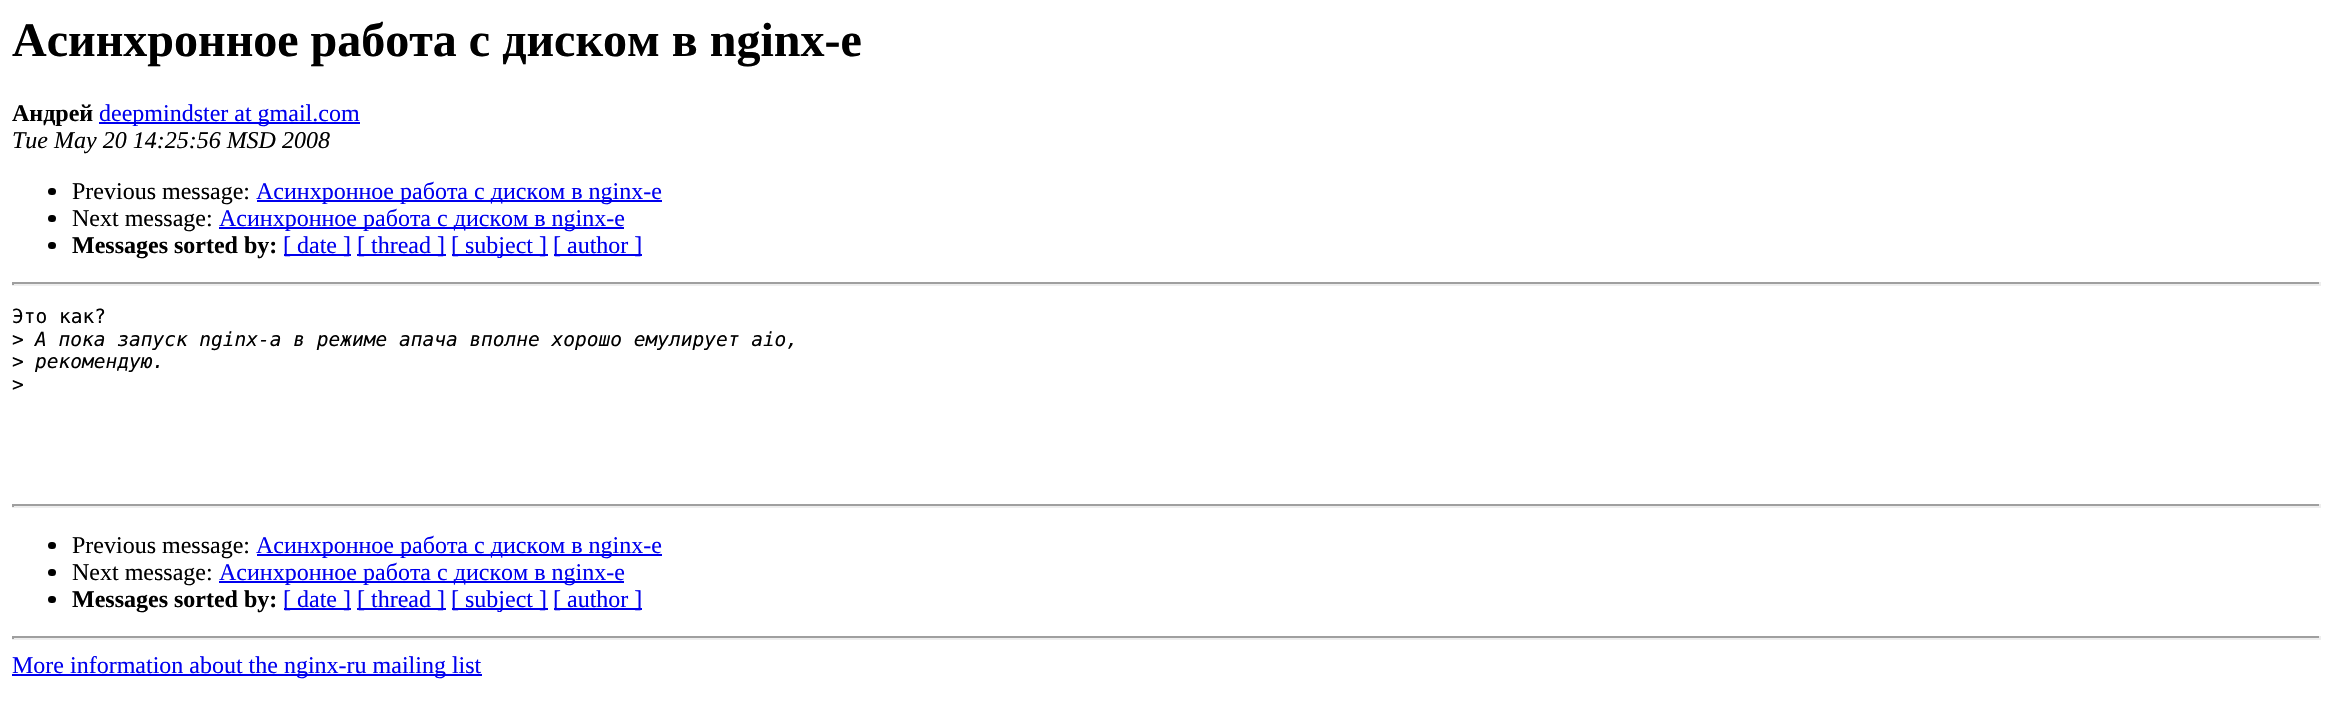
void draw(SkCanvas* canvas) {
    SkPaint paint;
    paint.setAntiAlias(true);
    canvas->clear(0xFFFFFFFF);
    SkFont font1(fontMgr->matchFamilyStyle("Liberation Serif", SkFontStyle::Bold()), 48);
    font1.setSubpixel(true);
    paint.setColor(0xFF000000);
    canvas->drawString("Асинхронное работа с диском в nginx-е", 12, 56, font1, paint);
    SkFont font2(fontMgr->matchFamilyStyle("Liberation Serif", SkFontStyle::Bold()), 24);
    font2.setSubpixel(true);
    canvas->drawString("Андрей", 12, 121, font2, paint);
    paint.setColor(0xFF0000EE);
    canvas->drawRect(SkRect::MakeXYWH(99, 122, 261, 2), paint);
    SkFont font3(fontMgr->matchFamilyStyle("Liberation Serif", SkFontStyle::Normal()), 24);
    font3.setSubpixel(true);
    canvas->drawString("deepmindster at gmail.com", 99, 121, font3, paint);
    SkFont font4(fontMgr->matchFamilyStyle("Liberation Serif", SkFontStyle::Italic()), 24);
    font4.setSubpixel(true);
    paint.setColor(0xFF000000);
    canvas->drawString("Tue May 20 14:25:56 MSD 2008", 12, 148, font4, paint);
    canvas->drawRoundRect(SkRect::MakeXYWH(48, 188, 8, 7), 3.5f, 3.5f, paint);
    canvas->drawString("Previous message:", 72, 199, font3, paint);
    paint.setColor(0xFF0000EE);
    canvas->drawRect(SkRect::MakeXYWH(257, 200, 405, 2), paint);
    canvas->drawString("Асинхронное работа с диском в nginx-е", 256, 199, font3, paint);
    paint.setColor(0xFF000000);
    canvas->drawRoundRect(SkRect::MakeXYWH(48, 215, 8, 7), 3.5f, 3.5f, paint);
    canvas->drawString("Next message:", 72, 226, font3, paint);
    paint.setColor(0xFF0000EE);
    canvas->drawRect(SkRect::MakeXYWH(219, 227, 405, 2), paint);
    canvas->drawString("Асинхронное работа с диском в nginx-е", 219, 226, font3, paint);
    paint.setColor(0xFF000000);
    canvas->drawRoundRect(SkRect::MakeXYWH(48, 242, 8, 7), 3.5f, 3.5f, paint);
    canvas->drawString("Messages sorted by:", 72, 253, font2, paint);
    paint.setColor(0xFF0000EE);
    canvas->drawRect(SkRect::MakeXYWH(284, 254, 67, 2), paint);
    canvas->drawString("[ date ]", 283, 253, font3, paint);
    canvas->drawRect(SkRect::MakeXYWH(357, 254, 89, 2), paint);
    canvas->drawString("[ thread ]", 357, 253, font3, paint);
    canvas->drawRect(SkRect::MakeXYWH(452, 254, 96, 2), paint);
    canvas->drawString("[ subject ]", 451, 253, font3, paint);
    canvas->drawRect(SkRect::MakeXYWH(554, 254, 88, 2), paint);
    canvas->drawString("[ author ]", 553, 253, font3, paint);
    paint.setColor(0xFF9F9F9F);
    canvas->drawRect(SkRect::MakeXYWH(12, 282, 2309, 2), paint);
    paint.setColor(0xFFEEEEEE);
    canvas->drawRect(SkRect::MakeXYWH(2319, 282, 2, 3), paint);
    canvas->drawRect(SkRect::MakeXYWH(12, 284, 2309, 2), paint);
    paint.setColor(0xFF9F9F9F);
    canvas->drawRect(SkRect::MakeXYWH(12, 282, 2, 3), paint);
    SkFont font5(fontMgr->matchFamilyStyle("DejaVu Sans Mono", SkFontStyle::Normal()), 19.5f);
    font5.setSubpixel(true);
    paint.setColor(0xFF000000);
    canvas->drawString("Это как?", 12, 323, font5, paint);
    canvas->drawString(">", 12, 346, font5, paint);
    SkFont font6(fontMgr->matchFamilyStyle("DejaVu Sans Mono", SkFontStyle::Italic()), 19.5f);
    font6.setSubpixel(true);
    canvas->drawString("А пока запуск nginx-а в режиме апача вполне хорошо емулирует aio,", 35, 346, font6, paint);
    canvas->drawString(">", 12, 368, font5, paint);
    canvas->drawString("рекомендую.", 35, 368, font6, paint);
    canvas->drawString(">", 12, 391, font5, paint);
    paint.setColor(0xFF9F9F9F);
    canvas->drawRect(SkRect::MakeXYWH(12, 504, 2309, 2), paint);
    paint.setColor(0xFFEEEEEE);
    canvas->drawRect(SkRect::MakeXYWH(2319, 504, 2, 3), paint);
    canvas->drawRect(SkRect::MakeXYWH(12, 506, 2309, 2), paint);
    paint.setColor(0xFF9F9F9F);
    canvas->drawRect(SkRect::MakeXYWH(12, 504, 2, 3), paint);
    paint.setColor(0xFF000000);
    canvas->drawRoundRect(SkRect::MakeXYWH(48, 542, 8, 7), 3.5f, 3.5f, paint);
    canvas->drawString("Previous message:", 72, 553, font3, paint);
    paint.setColor(0xFF0000EE);
    canvas->drawRect(SkRect::MakeXYWH(257, 554, 405, 2), paint);
    canvas->drawString("Асинхронное работа с диском в nginx-е", 256, 553, font3, paint);
    paint.setColor(0xFF000000);
    canvas->drawRoundRect(SkRect::MakeXYWH(48, 569, 8, 7), 3.5f, 3.5f, paint);
    canvas->drawString("Next message:", 72, 580, font3, paint);
    paint.setColor(0xFF0000EE);
    canvas->drawRect(SkRect::MakeXYWH(219, 581, 405, 2), paint);
    canvas->drawString("Асинхронное работа с диском в nginx-е", 219, 580, font3, paint);
    paint.setColor(0xFF000000);
    canvas->drawRoundRect(SkRect::MakeXYWH(48, 596, 8, 7), 3.5f, 3.5f, paint);
    canvas->drawString("Messages sorted by:", 72, 607, font2, paint);
    paint.setColor(0xFF0000EE);
    canvas->drawRect(SkRect::MakeXYWH(284, 608, 67, 2), paint);
    canvas->drawString("[ date ]", 283, 607, font3, paint);
    canvas->drawRect(SkRect::MakeXYWH(357, 608, 89, 2), paint);
    canvas->drawString("[ thread ]", 357, 607, font3, paint);
    canvas->drawRect(SkRect::MakeXYWH(452, 608, 96, 2), paint);
    canvas->drawString("[ subject ]", 451, 607, font3, paint);
    canvas->drawRect(SkRect::MakeXYWH(554, 608, 88, 2), paint);
    canvas->drawString("[ author ]", 553, 607, font3, paint);
    paint.setColor(0xFF9F9F9F);
    canvas->drawRect(SkRect::MakeXYWH(12, 636, 2309, 2), paint);
    paint.setColor(0xFFEEEEEE);
    canvas->drawRect(SkRect::MakeXYWH(2319, 636, 2, 3), paint);
    canvas->drawRect(SkRect::MakeXYWH(12, 638, 2309, 2), paint);
    paint.setColor(0xFF9F9F9F);
    canvas->drawRect(SkRect::MakeXYWH(12, 636, 2, 3), paint);
    paint.setColor(0xFF0000EE);
    canvas->drawRect(SkRect::MakeXYWH(12, 674, 470, 2), paint);
    canvas->drawString("More information about the nginx-ru mailing list", 12, 673, font3, paint);
}
